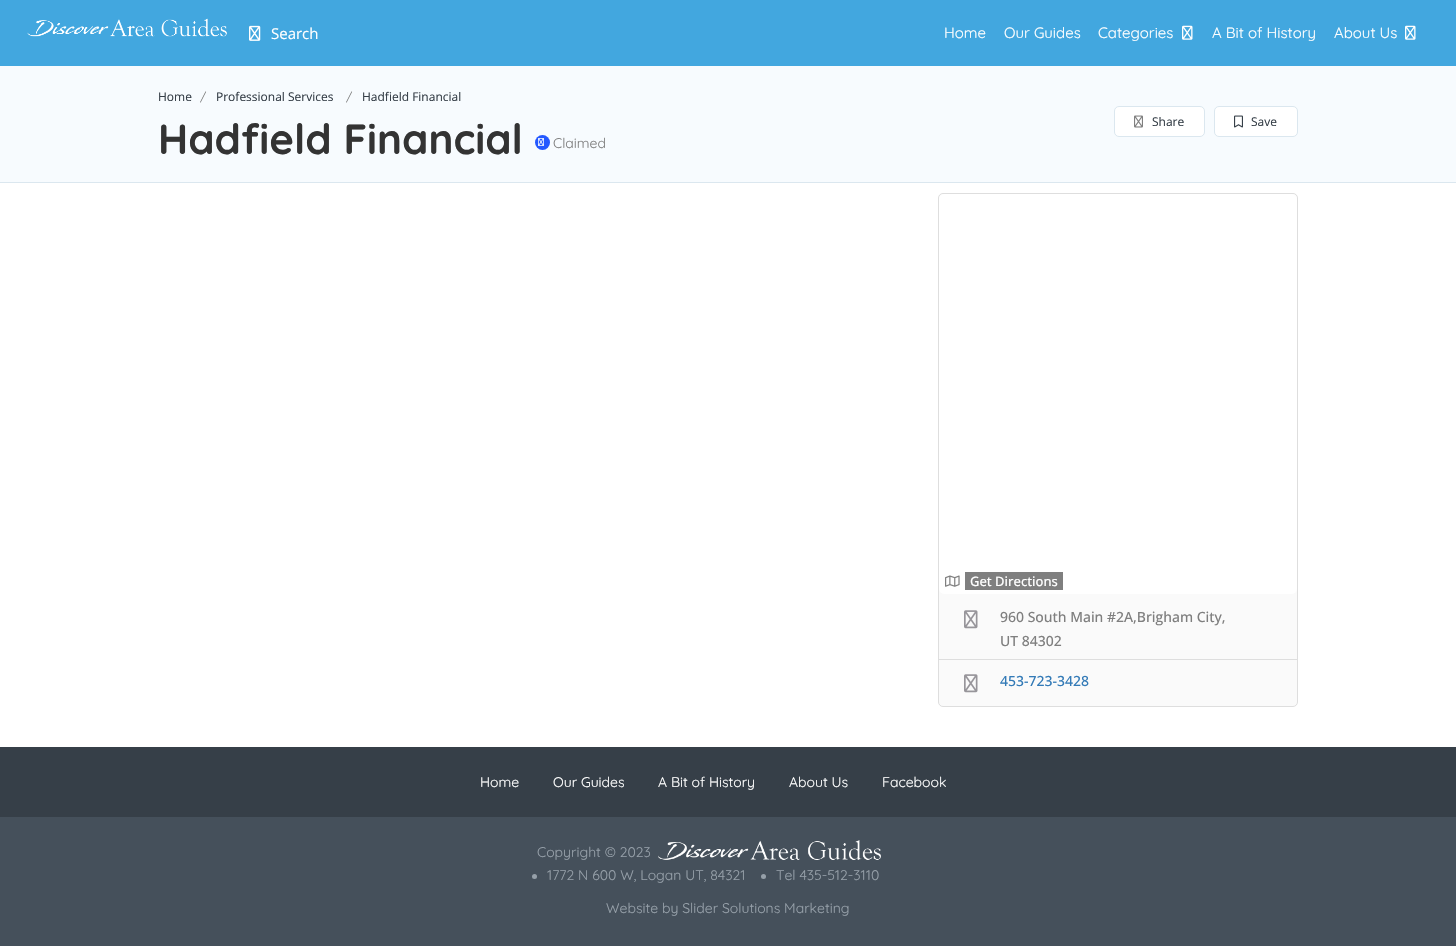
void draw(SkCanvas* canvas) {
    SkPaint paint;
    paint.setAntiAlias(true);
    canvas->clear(0xFFFFFFFF);
    paint.setColor(0xFF42A7DF);
    canvas->drawRect(SkRect::MakeXYWH(0, 0, 1456, 66), paint);
    canvas->drawImageRect(SkImages::DeferredFromEncodedData(SkData::MakeFromFileName("img1.png")), SkRect::MakeXYWH(27, 18, 200, 19), SkSamplingOptions());
    canvas->drawImageRect(SkImages::DeferredFromEncodedData(SkData::MakeFromFileName("img2.png")), SkRect::MakeXYWH(249, 25, 12, 16), SkSamplingOptions());
    SkFont font1(fontMgr->matchFamilyStyle("Open Sans", SkFontStyle::Normal()), 15);
    font1.setSubpixel(true);
    paint.setColor(0xFFFFFFFF);
    canvas->drawString("Search", 271, 39, font1, paint);
    SkFont font2(fontMgr->matchFamilyStyle("Quicksand", SkFontStyle::Normal()), 15);
    font2.setSubpixel(true);
    canvas->drawString("Home", 944, 38, font2, paint);
    canvas->drawString("Our Guides", 1004, 38, font2, paint);
    canvas->drawString("Categories", 1098, 38, font2, paint);
    canvas->drawImageRect(SkImages::DeferredFromEncodedData(SkData::MakeFromFileName("img3.png")), SkRect::MakeXYWH(1182, 25, 11, 15), SkSamplingOptions());
    canvas->drawString("A Bit of History", 1212, 38, font2, paint);
    canvas->drawString("About Us", 1334, 38, font2, paint);
    canvas->drawImageRect(SkImages::DeferredFromEncodedData(SkData::MakeFromFileName("img3.png")), SkRect::MakeXYWH(1405, 25, 11, 15), SkSamplingOptions());
    paint.setColor(0xFFF7FBFE);
    canvas->drawRect(SkRect::MakeXYWH(0, 66, 1456, 116), paint);
    paint.setColor(0xFFDBE7EF);
    canvas->drawRect(SkRect::MakeXYWH(0, 182, 1456, 1), paint);
    SkFont font3(fontMgr->matchFamilyStyle("Open Sans", SkFontStyle::Normal()), 12);
    font3.setSubpixel(true);
    paint.setColor(0xFF363F48);
    canvas->drawString("Home", 158, 101, font3, paint);
    SkFont font4(fontMgr->matchFamilyStyle("Quicksand", SkFontStyle::Normal()), 12);
    font4.setSubpixel(true);
    paint.setColor(0xFF7F7F7F);
    canvas->drawString("/", 200, 101, font4, paint);
    paint.setColor(0xFF363F48);
    canvas->drawString("Professional Services", 216, 101, font3, paint);
    paint.setColor(0xFF7F7F7F);
    canvas->drawString("/", 346, 101, font4, paint);
    paint.setColor(0xFF363F48);
    canvas->drawString("Hadfield Financial", 362, 101, font3, paint);
    SkFont font5(fontMgr->matchFamilyStyle("Quicksand", SkFontStyle::Bold()), 42);
    font5.setSubpixel(true);
    paint.setColor(0xFF333333);
    canvas->drawString("Hadfield Financial", 158, 154, font5, paint);
    paint.setColor(0xFF2458FF);
    canvas->drawCircle(542.5f, 142.5f, 7.5f, paint);
    canvas->drawImageRect(SkImages::DeferredFromEncodedData(SkData::MakeFromFileName("img4.png")), SkRect::MakeXYWH(538, 138, 6, 8), SkSamplingOptions());
    SkFont font6(fontMgr->matchFamilyStyle("Quicksand", SkFontStyle::Normal()), 14);
    font6.setSubpixel(true);
    paint.setColor(0xFF7F7F7F);
    canvas->drawString("Claimed", 553, 148, font6, paint);
    paint.setColor(0xFFFFFFFF);
    canvas->drawRoundRect(SkRect::MakeXYWH(1114.5f, 106.5f, 90, 30), 4.5f, 4.5f, paint);
    paint.setStyle(SkPaint::kStroke_Style);
    paint.setStrokeWidth(1);
    paint.setColor(0xFFDBE7EF);
    canvas->drawRoundRect(SkRect::MakeXYWH(1114.5f, 106.5f, 90, 30), 4.5f, 4.5f, paint);
    canvas->drawImageRect(SkImages::DeferredFromEncodedData(SkData::MakeFromFileName("img5.png")), SkRect::MakeXYWH(1134, 115, 9, 13), SkSamplingOptions());
    paint.setStyle(SkPaint::kFill_Style);
    paint.setColor(0xFF363F48);
    canvas->drawString("Share", 1152, 126, font3, paint);
    paint.setColor(0xFFFFFFFF);
    canvas->drawRoundRect(SkRect::MakeXYWH(1214.5f, 106.5f, 83, 30), 4.5f, 4.5f, paint);
    paint.setStyle(SkPaint::kStroke_Style);
    paint.setColor(0xFFDBE7EF);
    canvas->drawRoundRect(SkRect::MakeXYWH(1214.5f, 106.5f, 83, 30), 4.5f, 4.5f, paint);
    canvas->drawImageRect(SkImages::DeferredFromEncodedData(SkData::MakeFromFileName("img6.png")), SkRect::MakeXYWH(1234, 115, 9, 13), SkSamplingOptions());
    paint.setStyle(SkPaint::kFill_Style);
    paint.setColor(0xFF363F48);
    canvas->drawString("Save", 1251, 126, font3, paint);
    paint.setColor(0xFFFAFAFA);
    canvas->drawRoundRect(SkRect::MakeXYWH(938.5f, 193.5f, 359, 513), 4.5f, 4.5f, paint);
    paint.setStyle(SkPaint::kStroke_Style);
    paint.setColor(0xFFDEDEDE);
    canvas->drawRoundRect(SkRect::MakeXYWH(938.5f, 193.5f, 359, 513), 4.5f, 4.5f, paint);
    canvas->save();
    canvas->clipPath(SkPathBuilder().moveTo(943, 194).lineTo(1293, 194).cubicTo(1295, 194, 1297, 196, 1297, 198).lineTo(1297, 702).cubicTo(1297, 704, 1295, 706, 1293, 706).lineTo(943, 706).cubicTo(941, 706, 939, 704, 939, 702).lineTo(939, 198).cubicTo(939, 196, 941, 194, 943, 194).close().detach(), true);
    paint.setStyle(SkPaint::kFill_Style);
    paint.setColor(0xFFFFFFFF);
    canvas->drawRoundRect(SkRect::MakeXYWH(939, 194, 358, 400), 5, 5, paint);
    canvas->restore();
    canvas->drawImageRect(SkImages::DeferredFromEncodedData(SkData::MakeFromFileName("img7.png")), SkRect::MakeXYWH(945, 575, 15, 12), SkSamplingOptions());
    paint.setColor(0xFF7F7F7F);
    canvas->drawRect(SkRect::MakeXYWH(965, 572, 98, 18), paint);
    SkFont font7(fontMgr->matchFamilyStyle("Open Sans", SkFontStyle(500, SkFontStyle::kNormal_Width, SkFontStyle::kUpright_Slant)), 13);
    font7.setSubpixel(true);
    paint.setColor(0xFFFFFFFF);
    canvas->drawString("Get Directions", 970, 586, font7, paint);
    paint.setColor(0xFFDEDEDE);
    canvas->drawRect(SkRect::MakeXYWH(939, 659, 358, 1), paint);
    canvas->drawImageRect(SkImages::DeferredFromEncodedData(SkData::MakeFromFileName("img8.png")), SkRect::MakeXYWH(964, 610, 14, 19), SkSamplingOptions());
    SkFont font8(fontMgr->matchFamilyStyle("Open Sans", SkFontStyle(500, SkFontStyle::kNormal_Width, SkFontStyle::kUpright_Slant)), 14);
    font8.setSubpixel(true);
    paint.setColor(0xFF7F7F7F);
    canvas->drawString("960 South Main #2A,Brigham City,", 1000, 622, font8, paint);
    canvas->drawString("UT 84302", 1000, 646, font8, paint);
    canvas->drawImageRect(SkImages::DeferredFromEncodedData(SkData::MakeFromFileName("img8.png")), SkRect::MakeXYWH(964, 674, 14, 19), SkSamplingOptions());
    paint.setColor(0xFF337AB7);
    canvas->drawString("453-723-3428", 1000, 686, font8, paint);
    paint.setColor(0xFF363F48);
    canvas->drawRect(SkRect::MakeXYWH(0, 747, 1456, 70), paint);
    paint.setColor(0xFFFFFFFF);
    canvas->drawString("Home", 480, 787, font6, paint);
    canvas->drawString("Our Guides", 553, 787, font6, paint);
    canvas->drawString("A Bit of History", 658, 787, font6, paint);
    canvas->drawString("About Us", 789, 787, font6, paint);
    canvas->drawString("Facebook", 882, 787, font6, paint);
    paint.setColor(0xFF45505B);
    canvas->drawRect(SkRect::MakeXYWH(0, 817, 1456, 129), paint);
    paint.setColor(0xFF96A0A9);
    canvas->drawString("Copyright © 2023", 537, 857, font6, paint);
    canvas->drawImageRect(SkImages::DeferredFromEncodedData(SkData::MakeFromFileName("img9.png")), SkRect::MakeXYWH(658, 840, 223, 20), SkSamplingOptions());
    canvas->drawCircle(534.5f, 876.5f, 2.5f, paint);
    canvas->drawString("1772 N 600 W, Logan UT, 84321", 547, 880, font6, paint);
    canvas->drawCircle(763.5f, 876.5f, 2.5f, paint);
    canvas->drawString("Tel 435-512-3110", 776, 880, font6, paint);
    canvas->drawString("Website by Slider Solutions Marketing", 606, 913, font6, paint);
}
